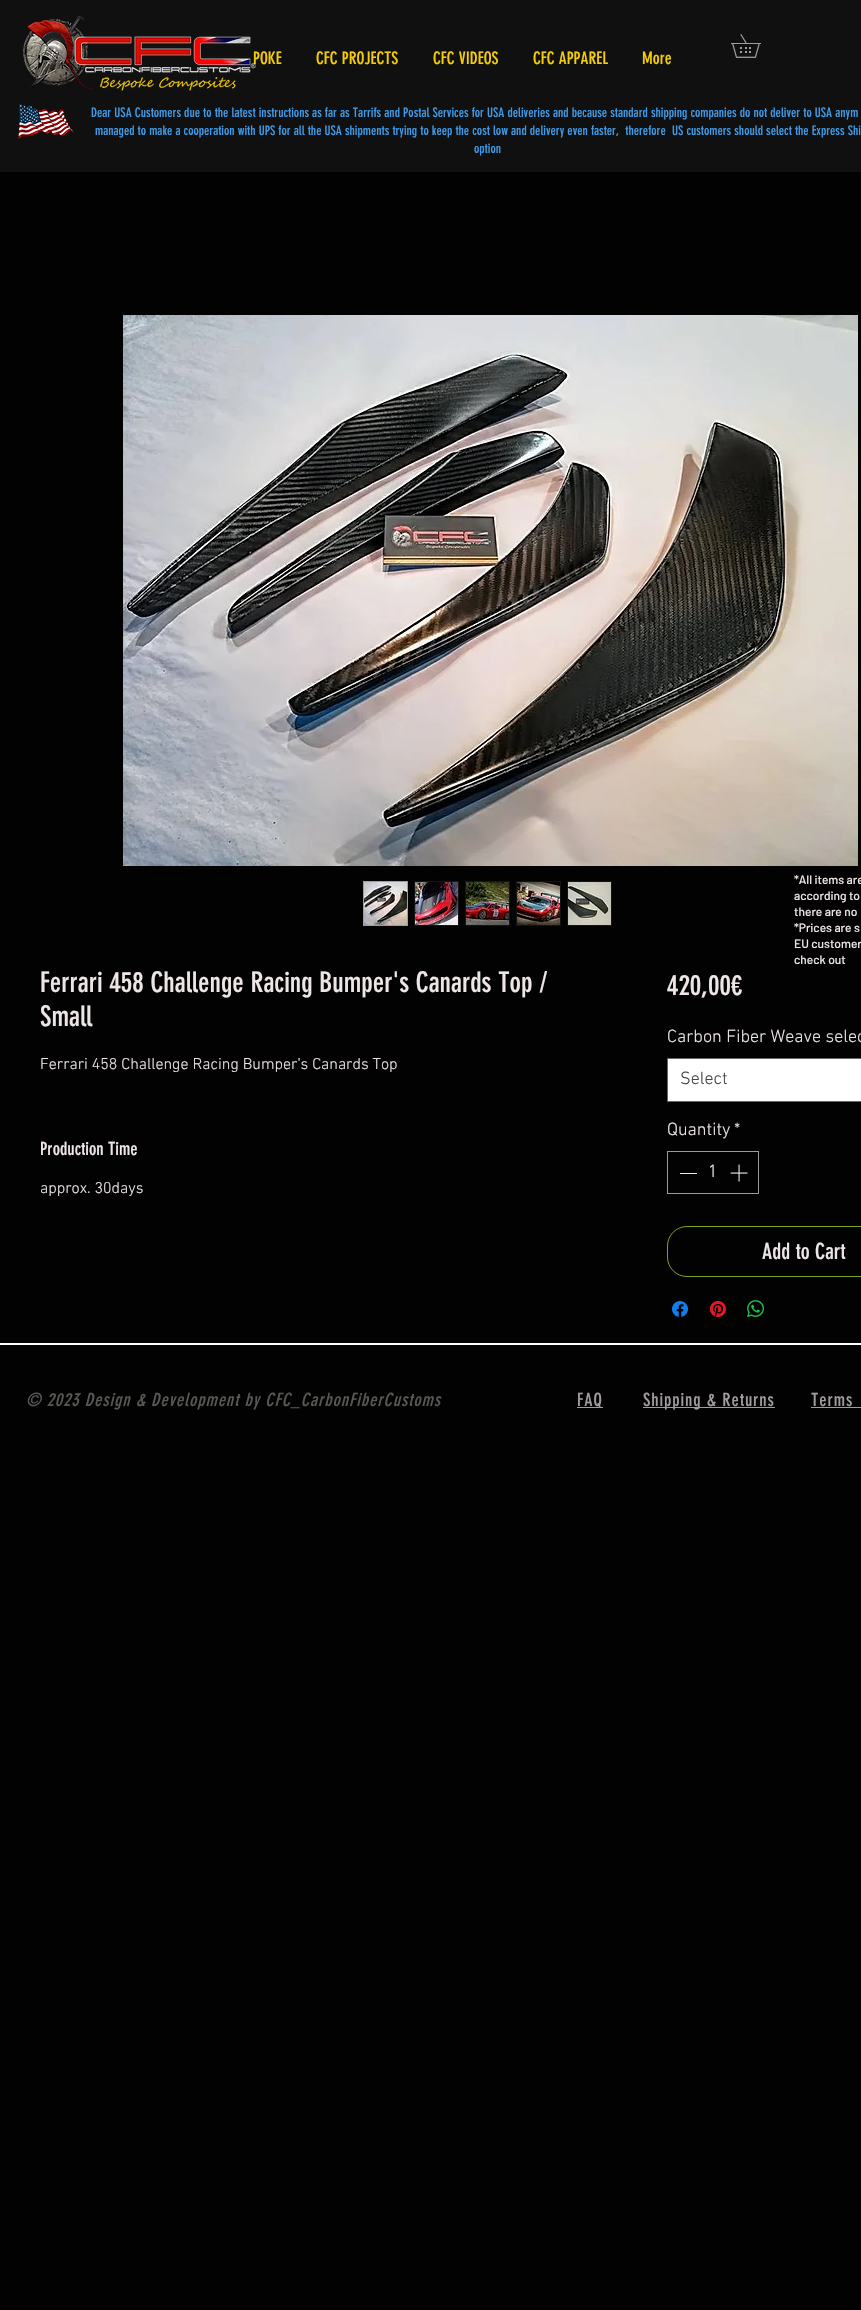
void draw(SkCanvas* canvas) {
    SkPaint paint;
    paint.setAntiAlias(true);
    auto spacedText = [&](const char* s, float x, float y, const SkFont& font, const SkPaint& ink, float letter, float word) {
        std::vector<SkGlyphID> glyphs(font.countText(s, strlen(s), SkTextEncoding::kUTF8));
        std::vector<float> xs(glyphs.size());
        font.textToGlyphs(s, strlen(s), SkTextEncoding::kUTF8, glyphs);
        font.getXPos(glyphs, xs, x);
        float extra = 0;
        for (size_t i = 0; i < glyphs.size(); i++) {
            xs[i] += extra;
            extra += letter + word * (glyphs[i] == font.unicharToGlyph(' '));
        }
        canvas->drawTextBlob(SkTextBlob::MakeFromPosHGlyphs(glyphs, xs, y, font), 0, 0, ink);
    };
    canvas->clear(0xFF020202);
    paint.setColor(0xFF101010);
    canvas->drawRect(SkRect::MakeXYWH(0, 0, 861, 172), paint);
    SkFont font1(fontMgr->matchFamilyStyle("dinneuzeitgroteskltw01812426", SkFontStyle::Normal()), 17);
    font1.setSubpixel(true);
    paint.setColor(0xFFF5CD05);
    canvas->drawString("POKE", 253, 64, font1, paint);
    canvas->drawImageRect(SkImages::DeferredFromEncodedData(SkData::MakeFromFileName("img1.png")), SkRect::MakeXYWH(23, 15, 233, 76), SkSamplingOptions());
    canvas->drawString("CFC PROJECTS", 316, 64, font1, paint);
    canvas->drawString("CFC VIDEOS", 433, 64, font1, paint);
    canvas->drawString("CFC APPAREL", 533, 64, font1, paint);
    canvas->drawString("More", 642, 64, font1, paint);
    canvas->drawImageRect(SkImages::DeferredFromEncodedData(SkData::MakeFromFileName("img2.png")), SkRect::MakeXYWH(731, 34, 30, 24), SkSamplingOptions());
    canvas->drawImageRect(SkImages::DeferredFromEncodedData(SkData::MakeFromFileName("img3.png")), SkRect::MakeXYWH(18, 104, 56, 35), SkSamplingOptions());
    SkFont font2(fontMgr->matchFamilyStyle("dinneuzeitgroteskltw01812426", SkFontStyle::Normal()), 13);
    font2.setSubpixel(true);
    paint.setColor(0xFF3D9BE9);
    canvas->drawString("Dear USA Customers due to the latest instructions as far as Tarrifs and Postal Services for USA deliveries and because standard shipping companies do not deliver to USA anym", 91, 117, font2, paint);
    canvas->drawString("managed to make a cooperation with UPS for all the USA shipments trying to keep the cost low and delivery even faster,  therefore  US customers should select the Express Shi", 95, 135, font2, paint);
    canvas->drawString("option", 474, 153, font2, paint);
    SkFont font3(fontMgr->matchFamilyStyle("Barlow", SkFontStyle(500, SkFontStyle::kNormal_Width, SkFontStyle::kUpright_Slant)), 12);
    font3.setSubpixel(true);
    paint.setColor(0xFFEEE6E6);
    canvas->drawString("*All items are", 794, 884, font3, paint);
    canvas->drawString("according to", 794, 900, font3, paint);
    canvas->drawString("there are no", 794, 916, font3, paint);
    canvas->drawString("*Prices are s", 794, 932, font3, paint);
    canvas->drawString("EU customer", 794, 948, font3, paint);
    canvas->drawString("check out", 794, 964, font3, paint);
    canvas->drawImageRect(SkImages::DeferredFromEncodedData(SkData::MakeFromFileName("img4.png")), SkRect::MakeXYWH(123, 315, 735, 551), SkSamplingOptions());
    paint.setStyle(SkPaint::kStroke_Style);
    paint.setStrokeWidth(1);
    paint.setColor(0xFFA29C9C);
    canvas->drawRect(SkRect::MakeXYWH(363.5f, 881.5f, 44, 44), paint);
    canvas->drawImageRect(SkImages::DeferredFromEncodedData(SkData::MakeFromFileName("img5.png")), SkRect::MakeXYWH(364, 882, 43, 43), SkSamplingOptions());
    paint.setStyle(SkPaint::kFill_Style);
    paint.setColor(0xFF141414);
    canvas->drawRect(SkRect::MakeXYWH(414, 881, 45, 45), paint);
    canvas->drawImageRect(SkImages::DeferredFromEncodedData(SkData::MakeFromFileName("img6.png")), SkRect::MakeXYWH(415, 882, 43, 43), SkSamplingOptions());
    canvas->drawRect(SkRect::MakeXYWH(465, 881, 45, 45), paint);
    canvas->drawImageRect(SkImages::DeferredFromEncodedData(SkData::MakeFromFileName("img7.png")), SkRect::MakeXYWH(466, 882, 43, 43), SkSamplingOptions());
    canvas->drawRect(SkRect::MakeXYWH(516, 881, 45, 45), paint);
    canvas->drawImageRect(SkImages::DeferredFromEncodedData(SkData::MakeFromFileName("img8.png")), SkRect::MakeXYWH(517, 882, 43, 43), SkSamplingOptions());
    canvas->drawRect(SkRect::MakeXYWH(567, 881, 45, 45), paint);
    canvas->drawImageRect(SkImages::DeferredFromEncodedData(SkData::MakeFromFileName("img9.png")), SkRect::MakeXYWH(568, 882, 43, 43), SkSamplingOptions());
    SkFont font4(fontMgr->matchFamilyStyle("dinneuzeitgroteskltw01812426", SkFontStyle::Normal()), 28);
    font4.setSubpixel(true);
    paint.setColor(0xFFEEE6E6);
    canvas->drawString("Ferrari 458 Challenge Racing Bumper's Canards Top /", 40, 992, font4, paint);
    canvas->drawString("Small", 40, 1026, font4, paint);
    SkFont font5(fontMgr->matchFamilyStyle("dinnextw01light", SkFontStyle(300, SkFontStyle::kNormal_Width, SkFontStyle::kUpright_Slant)), 16);
    font5.setSubpixel(true);
    canvas->drawString("Ferrari 458 Challenge Racing Bumper's Canards Top", 40, 1069, font5, paint);
    SkFont font6(fontMgr->matchFamilyStyle("dinneuzeitgroteskltw01812426", SkFontStyle::Normal()), 18);
    font6.setSubpixel(true);
    canvas->drawString("Production Time", 40, 1155, font6, paint);
    canvas->drawString("approx. 30days", 40, 1193, font5, paint);
    canvas->drawString("420,00€", 667, 995, font4, paint);
    SkFont font7(fontMgr->matchFamilyStyle("dinnextw01light", SkFontStyle(300, SkFontStyle::kNormal_Width, SkFontStyle::kUpright_Slant)), 18);
    font7.setSubpixel(true);
    canvas->drawString("Carbon Fiber Weave selec", 667, 1042, font7, paint);
    paint.setColor(0xFFFFFFFF);
    canvas->drawRect(SkRect::MakeXYWH(667.5f, 1058.5f, 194, 43), paint);
    paint.setStyle(SkPaint::kStroke_Style);
    paint.setColor(0xFF666666);
    canvas->drawRect(SkRect::MakeXYWH(667.5f, 1058.5f, 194, 43), paint);
    paint.setStyle(SkPaint::kFill_Style);
    paint.setColor(0xFF444444);
    canvas->drawString("Select", 680, 1084, font7, paint);
    paint.setColor(0xFFEEE6E6);
    canvas->drawString("Quantity", 667, 1135, font7, paint);
    canvas->drawString("*", 734, 1135, font7, paint);
    paint.setStyle(SkPaint::kStroke_Style);
    paint.setColor(0xFF9A9A9A);
    canvas->drawRect(SkRect::MakeXYWH(667.5f, 1151.5f, 91, 42), paint);
    paint.setStyle(SkPaint::kFill_Style);
    paint.setColor(0xFFEEE6E6);
    canvas->drawRect(SkRect::MakeXYWH(680, 1173, 17, 1), paint);
    canvas->drawString("1", 708, 1177, font7, paint);
    canvas->drawImageRect(SkImages::DeferredFromEncodedData(SkData::MakeFromFileName("img10.png")), SkRect::MakeXYWH(730, 1164, 18, 18), SkSamplingOptions());
    paint.setStyle(SkPaint::kStroke_Style);
    paint.setColor(0xFF80A315);
    canvas->drawRoundRect(SkRect::MakeXYWH(667.5f, 1226.5f, 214, 50), 19.5f, 19.5f, paint);
    SkFont font8(fontMgr->matchFamilyStyle("dinneuzeitgroteskltw01812426", SkFontStyle::Normal()), 22);
    font8.setSubpixel(true);
    paint.setStyle(SkPaint::kFill_Style);
    paint.setColor(0xFFEEE6E6);
    canvas->drawString("Add to Cart", 762, 1259, font8, paint);
    canvas->drawImageRect(SkImages::DeferredFromEncodedData(SkData::MakeFromFileName("img11.png")), SkRect::MakeXYWH(672, 1301, 16, 16), SkSamplingOptions());
    canvas->drawImageRect(SkImages::DeferredFromEncodedData(SkData::MakeFromFileName("img12.png")), SkRect::MakeXYWH(710, 1301, 16, 16), SkSamplingOptions());
    canvas->drawImageRect(SkImages::DeferredFromEncodedData(SkData::MakeFromFileName("img13.png")), SkRect::MakeXYWH(747, 1300, 17, 17), SkSamplingOptions());
    paint.setColor(0xFFFFFFFF);
    canvas->drawRect(SkRect::MakeXYWH(0, 1343, 861, 2), paint);
    SkFont font9(fontMgr->matchFamilyStyle("dinneuzeitgroteskltw01812426", SkFontStyle::Italic()), 18);
    font9.setSubpixel(true);
    paint.setColor(0xFF575754);
    spacedText("© 2023 Design & Development by CFC_CarbonFiberCustoms", 26, 1406, font9, paint, 0.9f, 0);
    paint.setColor(0xFFA29C9C);
    canvas->drawRect(SkRect::MakeXYWH(577, 1407, 26, 1), paint);
    spacedText("FAQ", 577, 1406, font6, paint, 0.9f, 0);
    canvas->drawRect(SkRect::MakeXYWH(643, 1407, 132, 1), paint);
    spacedText("Shipping & Returns", 643, 1406, font6, paint, 0.9f, 0);
    spacedText("Terms", 811, 1406, font6, paint, 0.9f, 0);
    canvas->drawRect(SkRect::MakeXYWH(811, 1407, 50, 1), paint);
}
